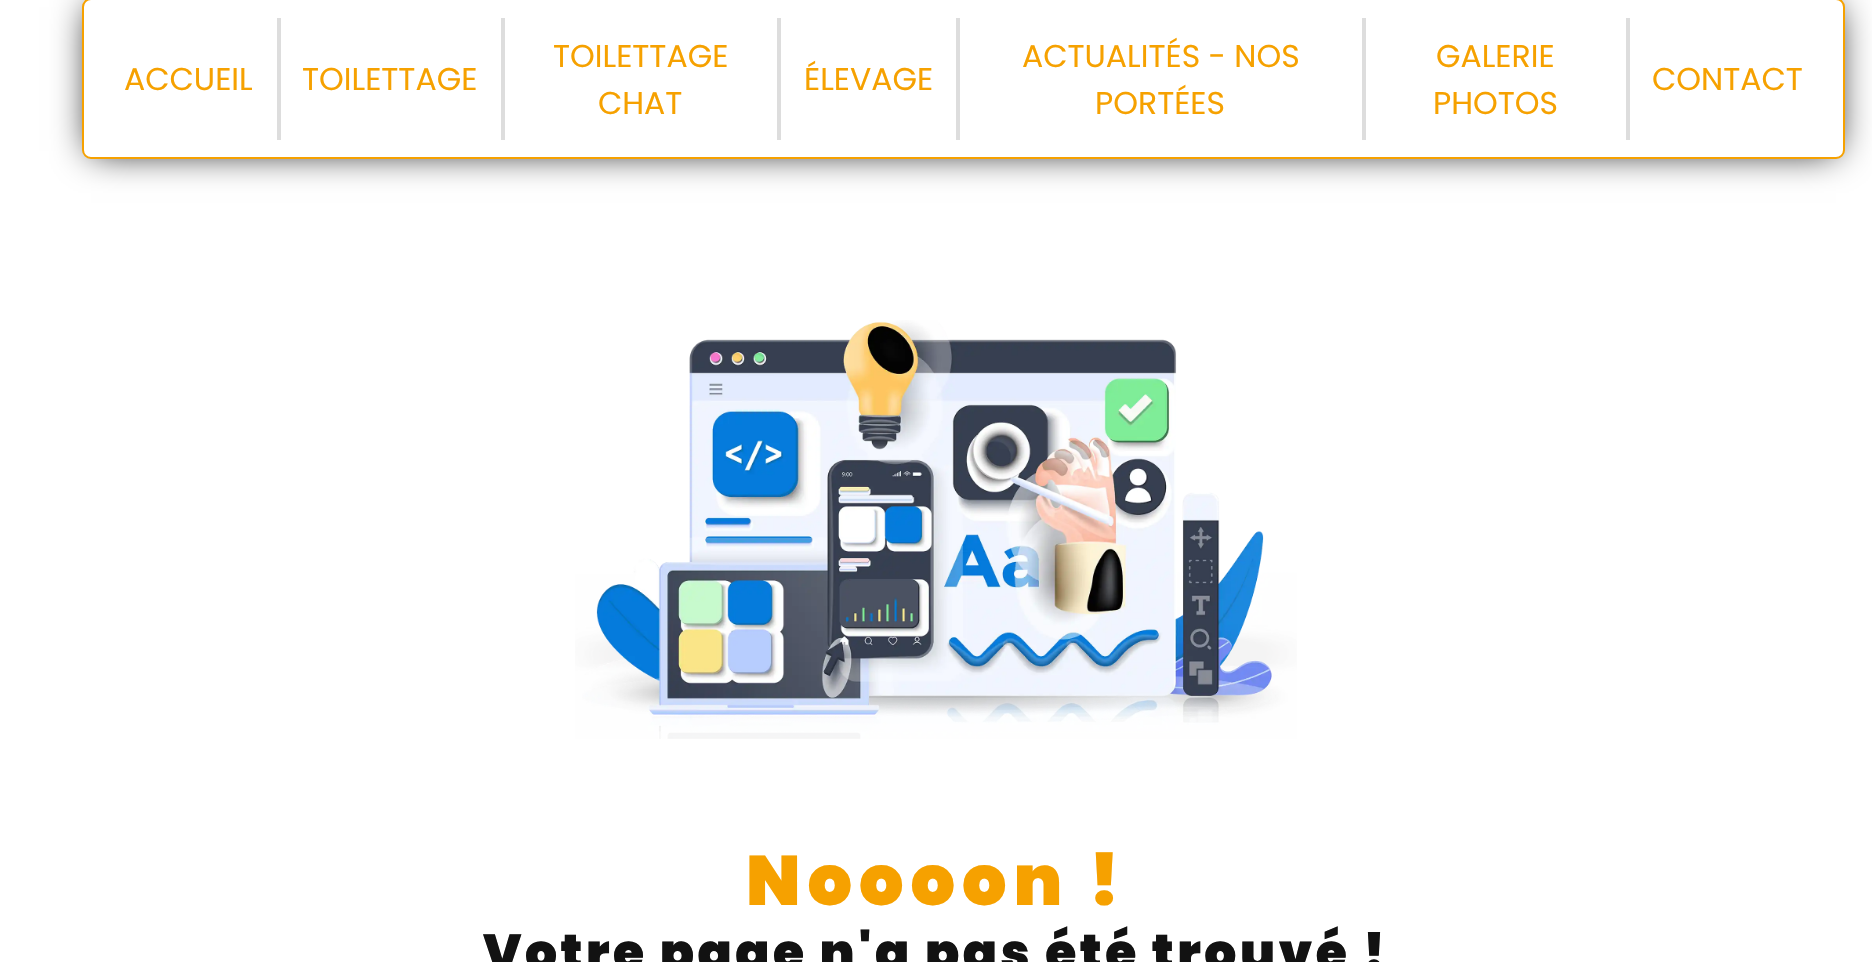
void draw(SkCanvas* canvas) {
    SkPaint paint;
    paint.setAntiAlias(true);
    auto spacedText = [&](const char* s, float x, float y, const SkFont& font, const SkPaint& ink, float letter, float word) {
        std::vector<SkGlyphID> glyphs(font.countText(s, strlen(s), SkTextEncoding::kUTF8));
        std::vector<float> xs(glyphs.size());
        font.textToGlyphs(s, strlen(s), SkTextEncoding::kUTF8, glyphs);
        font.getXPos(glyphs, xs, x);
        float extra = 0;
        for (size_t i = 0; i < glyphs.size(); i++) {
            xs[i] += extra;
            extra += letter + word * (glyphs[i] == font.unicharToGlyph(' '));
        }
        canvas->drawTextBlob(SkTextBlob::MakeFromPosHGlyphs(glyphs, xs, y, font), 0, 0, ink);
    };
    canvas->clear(0xFFFFFFFF);
    paint.setColor(0xFF000000);
    paint.setMaskFilter(SkMaskFilter::MakeBlur(kNormal_SkBlurStyle, 17.5f));
    canvas->drawRect(SkRect::MakeXYWH(91, 7, 1745, 144), paint);
    paint.setMaskFilter(nullptr);
    paint.setColor(0xFFFFFFFF);
    canvas->drawRoundRect(SkRect::MakeXYWH(83, -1, 1761, 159), 8, 8, paint);
    paint.setStyle(SkPaint::kStroke_Style);
    paint.setStrokeWidth(2);
    paint.setColor(0xFFF6A100);
    canvas->drawRoundRect(SkRect::MakeXYWH(83, -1, 1761, 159), 8, 8, paint);
    SkFont font1(fontMgr->matchFamilyStyle("Poppins", SkFontStyle::Normal()), 31.5f);
    font1.setSubpixel(true);
    paint.setStyle(SkPaint::kFill_Style);
    canvas->drawString("ACCUEIL", 124, 90, font1, paint);
    paint.setColor(0xFFDDDDDD);
    canvas->drawRect(SkRect::MakeXYWH(277, 18, 4, 122), paint);
    paint.setColor(0xFFF6A100);
    canvas->drawString("TOILETTAGE", 302, 90, font1, paint);
    paint.setColor(0xFFDDDDDD);
    canvas->drawRect(SkRect::MakeXYWH(501, 18, 4, 122), paint);
    paint.setColor(0xFFF6A100);
    canvas->drawString("TOILETTAGE", 553, 67, font1, paint);
    canvas->drawString("CHAT", 598, 114, font1, paint);
    paint.setColor(0xFFDDDDDD);
    canvas->drawRect(SkRect::MakeXYWH(777, 18, 4, 122), paint);
    paint.setColor(0xFFF6A100);
    canvas->drawString("ÉLEVAGE", 804, 90, font1, paint);
    paint.setColor(0xFFDDDDDD);
    canvas->drawRect(SkRect::MakeXYWH(956, 18, 4, 122), paint);
    paint.setColor(0xFFF6A100);
    canvas->drawString("ACTUALITÉS - NOS", 1022, 67, font1, paint);
    canvas->drawString("PORTÉES", 1095, 114, font1, paint);
    paint.setColor(0xFFDDDDDD);
    canvas->drawRect(SkRect::MakeXYWH(1362, 18, 4, 122), paint);
    paint.setColor(0xFFF6A100);
    canvas->drawString("GALERIE", 1436, 67, font1, paint);
    canvas->drawString("PHOTOS", 1433, 114, font1, paint);
    paint.setColor(0xFFDDDDDD);
    canvas->drawRect(SkRect::MakeXYWH(1626, 18, 4, 122), paint);
    paint.setColor(0xFFF6A100);
    canvas->drawString("CONTACT", 1652, 90, font1, paint);
    canvas->drawImageRect(SkImages::DeferredFromEncodedData(SkData::MakeFromFileName("img1.png")), SkRect::MakeXYWH(575, 320, 722, 419), SkSamplingOptions());
    SkFont font2(fontMgr->matchFamilyStyle("Poppins", SkFontStyle(900, SkFontStyle::kNormal_Width, SkFontStyle::kUpright_Slant)), 70);
    font2.setSubpixel(true);
    spacedText("Noooon !", 746, 905, font2, paint, 7, 0);
    SkFont font3(fontMgr->matchFamilyStyle("Poppins", SkFontStyle(900, SkFontStyle::kNormal_Width, SkFontStyle::kUpright_Slant)), 50.4f);
    font3.setSubpixel(true);
    paint.setColor(0xFF121212);
    spacedText("Votre page n'a pas été trouvé !", 483, 970, font3, paint, 3.5f, 0);
}
